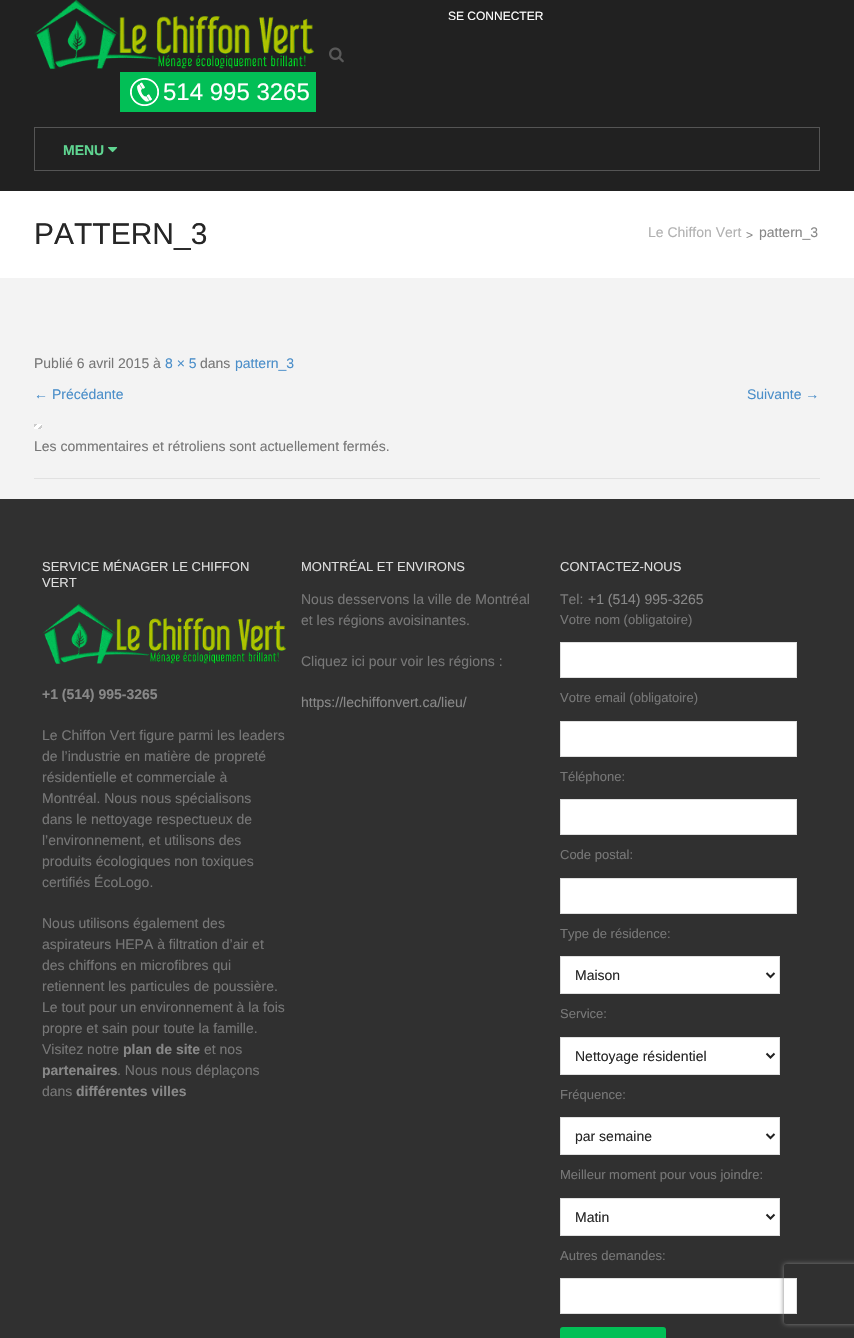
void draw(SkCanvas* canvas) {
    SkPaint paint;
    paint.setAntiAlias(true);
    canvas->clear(0xFFF3F3F3);
    paint.setColor(0xFF212121);
    canvas->drawRect(SkRect::MakeXYWH(0, 0, 854, 191), paint);
    canvas->drawImageRect(SkImages::DeferredFromEncodedData(SkData::MakeFromFileName("img1.png")), SkRect::MakeXYWH(34, 0, 280, 69), SkSamplingOptions());
    SkFont font1(fontMgr->matchFamilyStyle("Liberation Sans", SkFontStyle::Normal()), 12);
    font1.setSubpixel(true);
    paint.setColor(0xFFFFFFFF);
    canvas->drawString("SE CONNECTER", 448, 20, font1, paint);
    canvas->drawImageRect(SkImages::DeferredFromEncodedData(SkData::MakeFromFileName("img2.png")), SkRect::MakeXYWH(329, 47, 15, 16), SkSamplingOptions());
    paint.setColor(0xFF02BF56);
    canvas->drawRect(SkRect::MakeXYWH(120, 72, 196, 40), paint);
    canvas->drawImageRect(SkImages::DeferredFromEncodedData(SkData::MakeFromFileName("img3.png")), SkRect::MakeXYWH(130, 78, 29, 28), SkSamplingOptions());
    SkFont font2(fontMgr->matchFamilyStyle("Liberation Sans", SkFontStyle::Normal()), 24);
    font2.setSubpixel(true);
    paint.setColor(0xFFFFFFFF);
    canvas->drawString("514 995 3265", 163, 100, font2, paint);
    paint.setStyle(SkPaint::kStroke_Style);
    paint.setStrokeWidth(1);
    paint.setColor(0xFF555555);
    canvas->drawRect(SkRect::MakeXYWH(34.5f, 127.5f, 785, 43), paint);
    SkFont font3(fontMgr->matchFamilyStyle("Liberation Sans", SkFontStyle::Bold()), 14);
    font3.setSubpixel(true);
    paint.setStyle(SkPaint::kFill_Style);
    paint.setColor(0xFF5FD591);
    canvas->drawString("MENU", 63, 155, font3, paint);
    canvas->drawImageRect(SkImages::DeferredFromEncodedData(SkData::MakeFromFileName("img4.png")), SkRect::MakeXYWH(108, 147, 10, 6), SkSamplingOptions());
    paint.setColor(0xFFFFFFFF);
    canvas->drawRect(SkRect::MakeXYWH(0, 191, 854, 87), paint);
    SkFont font4(fontMgr->matchFamilyStyle("Liberation Sans", SkFontStyle::Normal()), 30);
    font4.setSubpixel(true);
    paint.setColor(0xFF262626);
    canvas->drawString("PATTERN_3", 34, 244, font4, paint);
    SkFont font5(fontMgr->matchFamilyStyle("Liberation Sans", SkFontStyle::Normal()), 14);
    font5.setSubpixel(true);
    paint.setColor(0xFFB1B1B1);
    canvas->drawString("Le Chiffon Vert", 648, 237, font5, paint);
    paint.setColor(0xFF888888);
    canvas->drawString(">", 746, 239, font1, paint);
    canvas->drawString("pattern_3", 759, 237, font5, paint);
    paint.setColor(0xFF777777);
    canvas->drawString("Publié 6 avril 2015 à", 34, 368, font5, paint);
    paint.setColor(0xFF4A8EC9);
    canvas->drawString("8 × 5", 165, 368, font5, paint);
    paint.setColor(0xFF777777);
    canvas->drawString("dans", 200, 368, font5, paint);
    paint.setColor(0xFF4A8EC9);
    canvas->drawString("pattern_3", 235, 368, font5, paint);
    canvas->drawString("← Précédante", 34, 399, font5, paint);
    canvas->drawString("Suivante →", 747, 399, font5, paint);
    canvas->drawImageRect(SkImages::DeferredFromEncodedData(SkData::MakeFromFileName("img5.png")), SkRect::MakeXYWH(34, 424, 8, 5), SkSamplingOptions());
    paint.setColor(0xFF777777);
    canvas->drawString("Les commentaires et rétroliens sont actuellement fermés.", 34, 451, font5, paint);
    paint.setColor(0xFFE1E1E1);
    canvas->drawRect(SkRect::MakeXYWH(34, 478, 786, 1), paint);
    paint.setColor(0xFF303030);
    canvas->drawRect(SkRect::MakeXYWH(0, 499, 854, 839), paint);
    SkFont font6(fontMgr->matchFamilyStyle("Liberation Sans", SkFontStyle::Normal()), 13);
    font6.setSubpixel(true);
    paint.setColor(0xFFDDDDDD);
    canvas->drawString("SERVICE MÉNAGER LE CHIFFON", 42, 571, font6, paint);
    canvas->drawString("VERT", 42, 587, font6, paint);
    canvas->drawImageRect(SkImages::DeferredFromEncodedData(SkData::MakeFromFileName("img6.png")), SkRect::MakeXYWH(42, 604, 244, 60), SkSamplingOptions());
    paint.setColor(0xFF888888);
    canvas->drawString("+1 (514) 995-3265", 42, 699, font3, paint);
    paint.setColor(0xFF777777);
    canvas->drawString("Le Chiffon Vert figure parmi les leaders", 42, 740, font5, paint);
    canvas->drawString("de l’industrie en matière de propreté", 42, 761, font5, paint);
    canvas->drawString("résidentielle et commerciale à", 42, 782, font5, paint);
    canvas->drawString("Montréal. Nous nous spécialisons", 42, 803, font5, paint);
    canvas->drawString("dans le nettoyage respectueux de", 42, 824, font5, paint);
    canvas->drawString("l’environnement, et utilisons des", 42, 845, font5, paint);
    canvas->drawString("produits écologiques non toxiques", 42, 866, font5, paint);
    canvas->drawString("certifiés ÉcoLogo.", 42, 887, font5, paint);
    canvas->drawString("Nous utilisons également des", 42, 928, font5, paint);
    canvas->drawString("aspirateurs HEPA à filtration d’air et", 42, 949, font5, paint);
    canvas->drawString("des chiffons en microfibres qui", 42, 970, font5, paint);
    canvas->drawString("retiennent les particules de poussière.", 42, 991, font5, paint);
    canvas->drawString("Le tout pour un environnement à la fois", 42, 1012, font5, paint);
    canvas->drawString("propre et sain pour toute la famille.", 42, 1033, font5, paint);
    canvas->drawString("Visitez notre", 42, 1054, font5, paint);
    paint.setColor(0xFF888888);
    canvas->drawString("plan de site", 123, 1054, font3, paint);
    paint.setColor(0xFF777777);
    canvas->drawString("et nos", 204, 1054, font5, paint);
    paint.setColor(0xFF888888);
    canvas->drawString("partenaires", 42, 1075, font3, paint);
    paint.setColor(0xFF777777);
    canvas->drawString(". Nous nous déplaçons", 117, 1075, font5, paint);
    canvas->drawString("dans", 42, 1096, font5, paint);
    paint.setColor(0xFF888888);
    canvas->drawString("différentes villes", 76, 1096, font3, paint);
    paint.setColor(0xFFDDDDDD);
    canvas->drawString("MONTRÉAL ET ENVIRONS", 301, 571, font6, paint);
    paint.setColor(0xFF777777);
    canvas->drawString("Nous desservons la ville de Montréal", 301, 604, font5, paint);
    canvas->drawString("et les régions avoisinantes.", 301, 625, font5, paint);
    canvas->drawString("Cliquez ici pour voir les régions :", 301, 666, font5, paint);
    paint.setColor(0xFF888888);
    canvas->drawString("https://lechiffonvert.ca/lieu/", 301, 707, font5, paint);
    paint.setColor(0xFFDDDDDD);
    canvas->drawString("CONTACTEZ-NOUS", 560, 571, font6, paint);
    paint.setColor(0xFF777777);
    canvas->drawString("Tel:", 560, 604, font5, paint);
    paint.setColor(0xFF888888);
    canvas->drawString("+1 (514) 995-3265", 588, 604, font5, paint);
    paint.setColor(0xFF777777);
    canvas->drawString("Votre nom (obligatoire)", 560, 624, font6, paint);
    paint.setColor(0xFFFFFFFF);
    canvas->drawRect(SkRect::MakeXYWH(560.5f, 642.5f, 236, 35), paint);
    paint.setStyle(SkPaint::kStroke_Style);
    paint.setColor(0xFFE0E0E0);
    canvas->drawRect(SkRect::MakeXYWH(560.5f, 642.5f, 236, 35), paint);
    paint.setStyle(SkPaint::kFill_Style);
    paint.setColor(0xFF777777);
    canvas->drawString("Votre email (obligatoire)", 560, 702, font6, paint);
    paint.setColor(0xFFFFFFFF);
    canvas->drawRect(SkRect::MakeXYWH(560.5f, 721.5f, 236, 35), paint);
    paint.setStyle(SkPaint::kStroke_Style);
    paint.setColor(0xFFE0E0E0);
    canvas->drawRect(SkRect::MakeXYWH(560.5f, 721.5f, 236, 35), paint);
    paint.setStyle(SkPaint::kFill_Style);
    paint.setColor(0xFF777777);
    canvas->drawString("Téléphone:", 560, 781, font6, paint);
    paint.setColor(0xFFFFFFFF);
    canvas->drawRect(SkRect::MakeXYWH(560.5f, 799.5f, 236, 35), paint);
    paint.setStyle(SkPaint::kStroke_Style);
    paint.setColor(0xFFE0E0E0);
    canvas->drawRect(SkRect::MakeXYWH(560.5f, 799.5f, 236, 35), paint);
    paint.setStyle(SkPaint::kFill_Style);
    paint.setColor(0xFF777777);
    canvas->drawString("Code postal:", 560, 859, font6, paint);
    paint.setColor(0xFFFFFFFF);
    canvas->drawRect(SkRect::MakeXYWH(560.5f, 878.5f, 236, 35), paint);
    paint.setStyle(SkPaint::kStroke_Style);
    paint.setColor(0xFFE0E0E0);
    canvas->drawRect(SkRect::MakeXYWH(560.5f, 878.5f, 236, 35), paint);
    paint.setStyle(SkPaint::kFill_Style);
    paint.setColor(0xFF777777);
    canvas->drawString("Type de résidence:", 560, 938, font6, paint);
    paint.setColor(0xFFFFFFFF);
    canvas->drawRect(SkRect::MakeXYWH(560.5f, 956.5f, 219, 37), paint);
    paint.setStyle(SkPaint::kStroke_Style);
    paint.setColor(0xFFE0E0E0);
    canvas->drawRect(SkRect::MakeXYWH(560.5f, 956.5f, 219, 37), paint);
    paint.setStrokeWidth(2);
    paint.setColor(0xFF222222);
    canvas->drawPath(SkPathBuilder().moveTo(766.5f, 973).lineTo(770.5f, 977).lineTo(774.5f, 973).detach(), paint);
    paint.setStyle(SkPaint::kFill_Style);
    paint.setColor(0xFF262626);
    canvas->drawString("Maison", 575, 980, font5, paint);
    paint.setColor(0xFF777777);
    canvas->drawString("Service:", 560, 1018, font6, paint);
    paint.setColor(0xFFFFFFFF);
    canvas->drawRect(SkRect::MakeXYWH(560.5f, 1037.5f, 219, 37), paint);
    paint.setStyle(SkPaint::kStroke_Style);
    paint.setStrokeWidth(1);
    paint.setColor(0xFFE0E0E0);
    canvas->drawRect(SkRect::MakeXYWH(560.5f, 1037.5f, 219, 37), paint);
    paint.setStrokeWidth(2);
    paint.setColor(0xFF222222);
    canvas->drawPath(SkPathBuilder().moveTo(766.5f, 1053.5f).lineTo(770.5f, 1057.5f).lineTo(774.5f, 1053.5f).detach(), paint);
    paint.setStyle(SkPaint::kFill_Style);
    paint.setColor(0xFF262626);
    canvas->drawString("Nettoyage résidentiel", 575, 1061, font5, paint);
    paint.setColor(0xFF777777);
    canvas->drawString("Fréquence:", 560, 1099, font6, paint);
    paint.setColor(0xFFFFFFFF);
    canvas->drawRect(SkRect::MakeXYWH(560.5f, 1117.5f, 219, 37), paint);
    paint.setStyle(SkPaint::kStroke_Style);
    paint.setStrokeWidth(1);
    paint.setColor(0xFFE0E0E0);
    canvas->drawRect(SkRect::MakeXYWH(560.5f, 1117.5f, 219, 37), paint);
    paint.setStrokeWidth(2);
    paint.setColor(0xFF222222);
    canvas->drawPath(SkPathBuilder().moveTo(766.5f, 1134).lineTo(770.5f, 1138).lineTo(774.5f, 1134).detach(), paint);
    paint.setStyle(SkPaint::kFill_Style);
    paint.setColor(0xFF262626);
    canvas->drawString("par semaine", 575, 1141, font5, paint);
    paint.setColor(0xFF777777);
    canvas->drawString("Meilleur moment pour vous joindre:", 560, 1179, font6, paint);
    paint.setColor(0xFFFFFFFF);
    canvas->drawRect(SkRect::MakeXYWH(560.5f, 1198.5f, 219, 37), paint);
    paint.setStyle(SkPaint::kStroke_Style);
    paint.setStrokeWidth(1);
    paint.setColor(0xFFE0E0E0);
    canvas->drawRect(SkRect::MakeXYWH(560.5f, 1198.5f, 219, 37), paint);
    paint.setStrokeWidth(2);
    paint.setColor(0xFF222222);
    canvas->drawPath(SkPathBuilder().moveTo(766.5f, 1214.5f).lineTo(770.5f, 1218.5f).lineTo(774.5f, 1214.5f).detach(), paint);
    paint.setStyle(SkPaint::kFill_Style);
    paint.setColor(0xFF262626);
    canvas->drawString("Matin", 575, 1222, font5, paint);
    paint.setColor(0xFF777777);
    canvas->drawString("Autres demandes:", 560, 1260, font6, paint);
    paint.setColor(0xFFFFFFFF);
    canvas->drawRect(SkRect::MakeXYWH(560.5f, 1278.5f, 236, 35), paint);
    paint.setStyle(SkPaint::kStroke_Style);
    paint.setStrokeWidth(1);
    paint.setColor(0xFFE0E0E0);
    canvas->drawRect(SkRect::MakeXYWH(560.5f, 1278.5f, 236, 35), paint);
    paint.setStyle(SkPaint::kFill_Style);
    paint.setColor(0xFF02BF56);
    canvas->drawRoundRect(SkRect::MakeXYWH(560, 1327, 106, 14), 3, 3, paint);
    canvas->save();
    canvas->clipPath(SkPathBuilder(SkPathFillType::kEvenOdd).moveTo(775, 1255).lineTo(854, 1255).lineTo(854, 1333).lineTo(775, 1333).close().moveTo(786, 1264).lineTo(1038, 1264).cubicTo(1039, 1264, 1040, 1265, 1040, 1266).lineTo(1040, 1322).cubicTo(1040, 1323, 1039, 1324, 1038, 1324).lineTo(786, 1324).cubicTo(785, 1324, 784, 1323, 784, 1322).lineTo(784, 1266).cubicTo(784, 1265, 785, 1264, 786, 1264).close().detach(), true);
    paint.setColor(0xFF808080);
    paint.setMaskFilter(SkMaskFilter::MakeBlur(kNormal_SkBlurStyle, 2.5f));
    canvas->drawRoundRect(SkRect::MakeXYWH(784, 1264, 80, 60), 2, 2, paint);
    paint.setMaskFilter(nullptr);
    canvas->restore();
}
